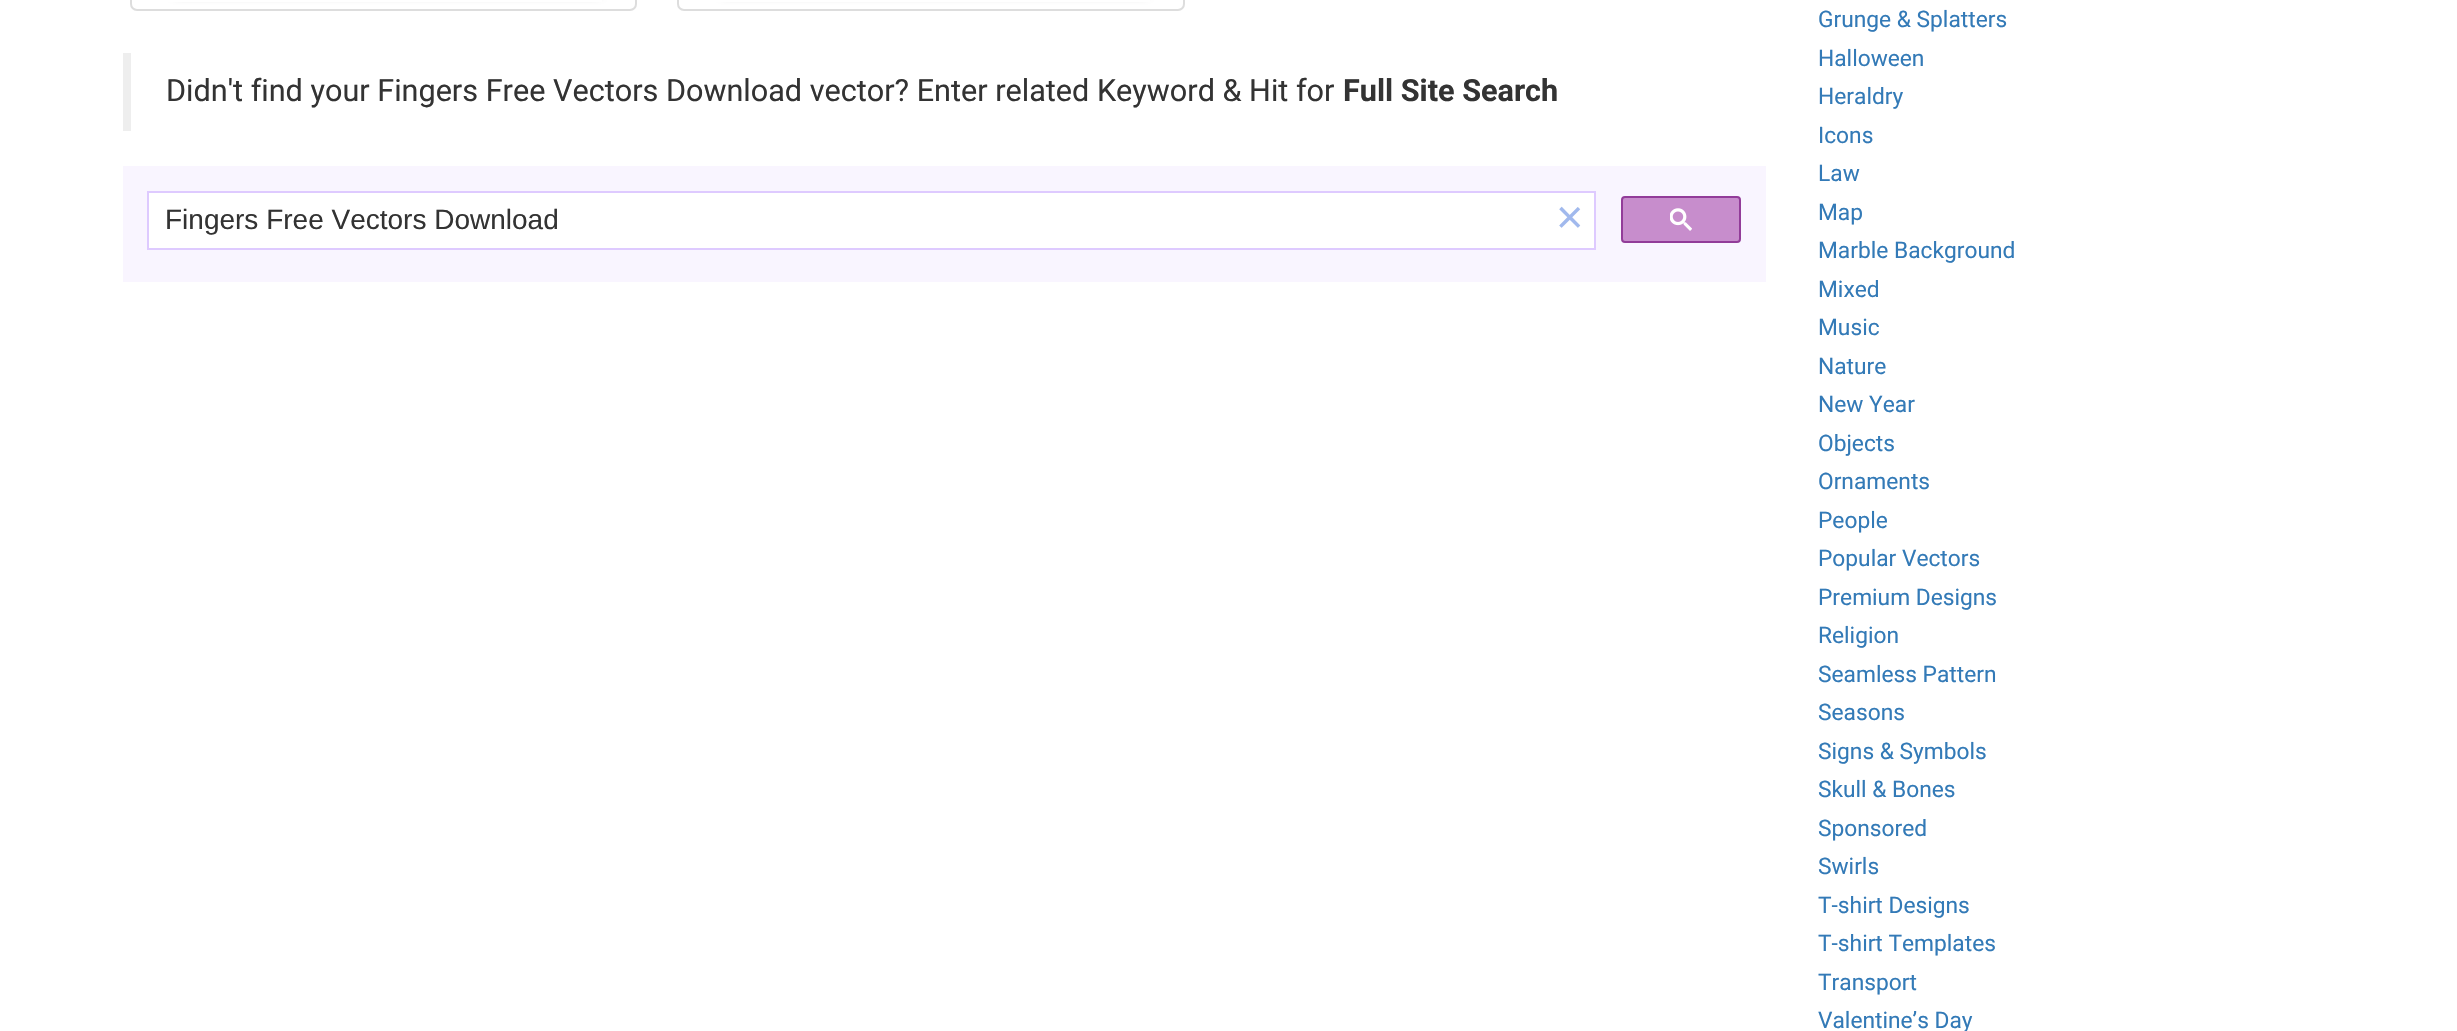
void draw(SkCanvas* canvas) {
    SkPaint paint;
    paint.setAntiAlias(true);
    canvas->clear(0xFFFFFFFF);
    paint.setStyle(SkPaint::kStroke_Style);
    paint.setStrokeWidth(2);
    paint.setColor(0xFFDDDDDD);
    canvas->drawRoundRect(SkRect::MakeXYWH(131, -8, 505, 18), 6, 6, paint);
    paint.setStyle(SkPaint::kFill_Style);
    paint.setColor(0xFF888888);
    paint.setMaskFilter(SkMaskFilter::MakeBlur(kNormal_SkBlurStyle, 4.5f));
    canvas->drawRect(SkRect::MakeXYWH(175, -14, 424, 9), paint);
    paint.setMaskFilter(nullptr);
    paint.setColor(0xFFFFFFFF);
    canvas->drawRect(SkRect::MakeXYWH(165, 0, 437, 2), paint);
    paint.setStyle(SkPaint::kStroke_Style);
    paint.setColor(0xFFDDDDDD);
    canvas->drawRoundRect(SkRect::MakeXYWH(678, -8, 506, 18), 6, 6, paint);
    paint.setStyle(SkPaint::kFill_Style);
    paint.setColor(0xFF888888);
    paint.setMaskFilter(SkMaskFilter::MakeBlur(kNormal_SkBlurStyle, 4.5f));
    canvas->drawRect(SkRect::MakeXYWH(723, -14, 423, 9), paint);
    paint.setMaskFilter(nullptr);
    paint.setColor(0xFFFFFFFF);
    canvas->drawRect(SkRect::MakeXYWH(712, 0, 438, 2), paint);
    paint.setColor(0xFFEEEEEE);
    canvas->drawRect(SkRect::MakeXYWH(123, 53, 8, 78), paint);
    SkFont font1(fontMgr->matchFamilyStyle("Roboto", SkFontStyle::Normal()), 30.6f);
    font1.setSubpixel(true);
    paint.setColor(0xFF333333);
    canvas->drawString("Didn't find your Fingers Free Vectors Download vector? Enter related Keyword & Hit for", 166, 101, font1, paint);
    SkFont font2(fontMgr->matchFamilyStyle("Roboto", SkFontStyle::Bold()), 30.6f);
    font2.setSubpixel(true);
    canvas->drawString("Full Site Search", 1343, 101, font2, paint);
    paint.setColor(0xFFF9F5FF);
    canvas->drawRect(SkRect::MakeXYWH(123, 166, 1643, 116), paint);
    paint.setColor(0xFFFFFFFF);
    canvas->drawRect(SkRect::MakeXYWH(148, 192, 1447, 57), paint);
    paint.setStyle(SkPaint::kStroke_Style);
    paint.setColor(0xFFDECAFF);
    canvas->drawRect(SkRect::MakeXYWH(148, 192, 1447, 57), paint);
    SkFont font3(fontMgr->matchFamilyStyle("Liberation Sans", SkFontStyle::Normal()), 28);
    font3.setSubpixel(true);
    paint.setStyle(SkPaint::kFill_Style);
    paint.setColor(0xFF333333);
    canvas->drawString("Fingers Free Vectors Download", 165, 229, font3, paint);
    SkFont font4(fontMgr->matchFamilyStyle("Liberation Sans", SkFontStyle::Normal()), 47);
    font4.setSubpixel(true);
    paint.setColor(0xFFA1B9ED);
    canvas->drawString("×", 1556, 233, font4, paint);
    paint.setColor(0xFFC78DCC);
    canvas->drawRoundRect(SkRect::MakeXYWH(1622, 197, 118, 45), 3, 3, paint);
    paint.setStyle(SkPaint::kStroke_Style);
    paint.setColor(0xFF923C99);
    canvas->drawRoundRect(SkRect::MakeXYWH(1622, 197, 118, 45), 3, 3, paint);
    canvas->drawImageRect(SkImages::DeferredFromEncodedData(SkData::MakeFromFileName("img1.png")), SkRect::MakeXYWH(1670, 208, 22, 23), SkSamplingOptions());
    SkFont font5(fontMgr->matchFamilyStyle("Roboto", SkFontStyle::Normal()), 22.75f);
    font5.setSubpixel(true);
    paint.setStyle(SkPaint::kFill_Style);
    paint.setColor(0xFF337AB7);
    canvas->drawString("Grunge & Splatters", 1818, 27, font5, paint);
    canvas->drawString("Halloween", 1818, 66, font5, paint);
    canvas->drawString("Heraldry", 1818, 104, font5, paint);
    canvas->drawString("Icons", 1818, 143, font5, paint);
    canvas->drawString("Law", 1818, 181, font5, paint);
    canvas->drawString("Map", 1818, 220, font5, paint);
    canvas->drawString("Marble Background", 1818, 258, font5, paint);
    canvas->drawString("Mixed", 1818, 297, font5, paint);
    canvas->drawString("Music", 1818, 335, font5, paint);
    canvas->drawString("Nature", 1818, 374, font5, paint);
    canvas->drawString("New Year", 1818, 412, font5, paint);
    canvas->drawString("Objects", 1818, 451, font5, paint);
    canvas->drawString("Ornaments", 1818, 489, font5, paint);
    canvas->drawString("People", 1818, 528, font5, paint);
    canvas->drawString("Popular Vectors", 1818, 566, font5, paint);
    canvas->drawString("Premium Designs", 1818, 605, font5, paint);
    canvas->drawString("Religion", 1818, 643, font5, paint);
    canvas->drawString("Seamless Pattern", 1818, 682, font5, paint);
    canvas->drawString("Seasons", 1818, 720, font5, paint);
    canvas->drawString("Signs & Symbols", 1818, 759, font5, paint);
    canvas->drawString("Skull & Bones", 1818, 797, font5, paint);
    canvas->drawString("Sponsored", 1818, 836, font5, paint);
    canvas->drawString("Swirls", 1818, 874, font5, paint);
    canvas->drawString("T-shirt Designs", 1818, 913, font5, paint);
    canvas->drawString("T-shirt Templates", 1818, 951, font5, paint);
    canvas->drawString("Transport", 1818, 990, font5, paint);
    canvas->drawString("Valentine’s Day", 1818, 1028, font5, paint);
}
